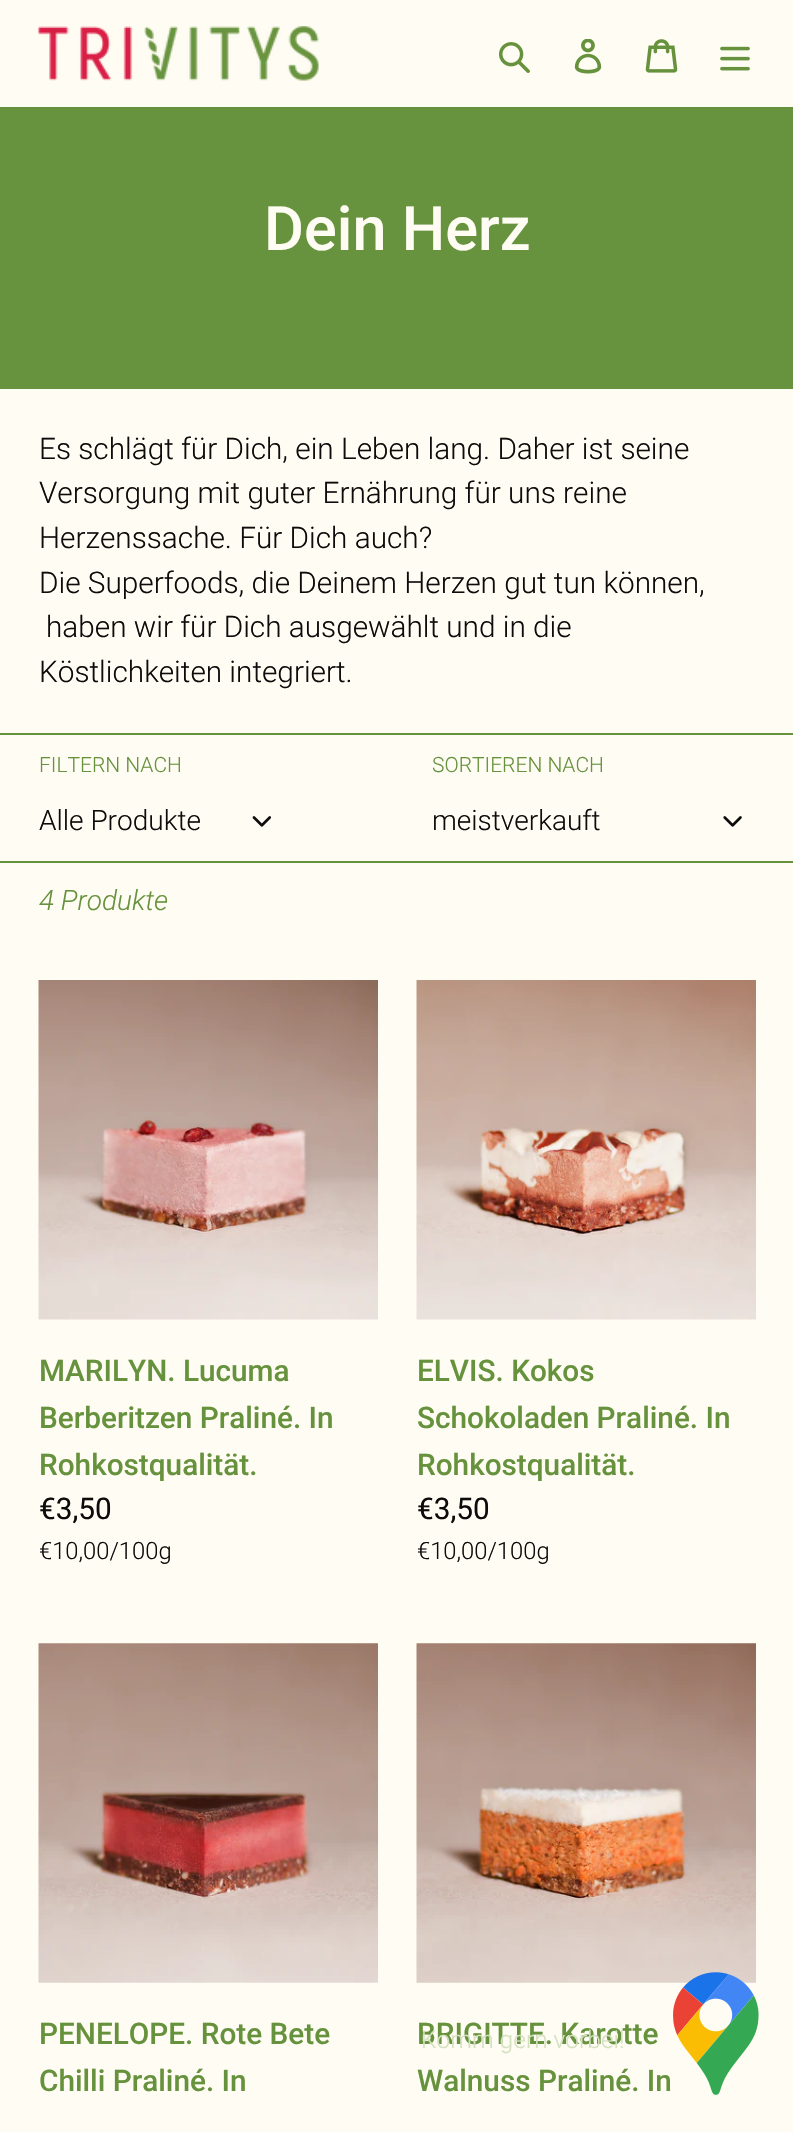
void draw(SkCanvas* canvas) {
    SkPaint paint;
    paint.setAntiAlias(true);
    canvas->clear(0xFFFFFDF3);
    paint.setColor(0xFF67923D);
    canvas->drawRect(SkRect::MakeXYWH(0, 107, 793, 2), paint);
    canvas->drawImageRect(SkImages::DeferredFromEncodedData(SkData::MakeFromFileName("img1.png")), SkRect::MakeXYWH(38, 26, 281, 55), SkSamplingOptions());
    canvas->drawImageRect(SkImages::DeferredFromEncodedData(SkData::MakeFromFileName("img2.png")), SkRect::MakeXYWH(499, 42, 31, 31), SkSamplingOptions());
    canvas->drawImageRect(SkImages::DeferredFromEncodedData(SkData::MakeFromFileName("img3.png")), SkRect::MakeXYWH(574, 39, 28, 35), SkSamplingOptions());
    canvas->drawImageRect(SkImages::DeferredFromEncodedData(SkData::MakeFromFileName("img4.png")), SkRect::MakeXYWH(645, 39, 33, 34), SkSamplingOptions());
    canvas->drawImageRect(SkImages::DeferredFromEncodedData(SkData::MakeFromFileName("img5.png")), SkRect::MakeXYWH(720, 46, 30, 25), SkSamplingOptions());
    paint.setColor(0xFF68933E);
    canvas->drawRect(SkRect::MakeXYWH(0, 109, 793, 280), paint);
    SkFont font1(fontMgr->matchFamilyStyle("Roboto", SkFontStyle(500, SkFontStyle::kNormal_Width, SkFontStyle::kUpright_Slant)), 61.25f);
    font1.setSubpixel(true);
    paint.setColor(0xFFFFFDF3);
    canvas->drawString("Dein Herz", 264, 250, font1, paint);
    SkFont font2(fontMgr->matchFamilyStyle("Roboto", SkFontStyle(300, SkFontStyle::kNormal_Width, SkFontStyle::kUpright_Slant)), 29.75f);
    font2.setSubpixel(true);
    paint.setColor(0xFF0D0C0C);
    canvas->drawString("Es schlägt für Dich, ein Leben lang. Daher ist seine", 39, 459, font2, paint);
    canvas->drawString("Versorgung mit guter Ernährung für uns reine", 39, 503, font2, paint);
    canvas->drawString("Herzenssache. Für Dich auch?", 39, 548, font2, paint);
    canvas->drawString("Die Superfoods, die Deinem Herzen gut tun können,", 39, 593, font2, paint);
    canvas->drawString("haben wir für Dich ausgewählt und in die", 46, 637, font2, paint);
    canvas->drawString("Köstlichkeiten integriert.", 39, 682, font2, paint);
    paint.setColor(0xFF67923D);
    canvas->drawRect(SkRect::MakeXYWH(0, 733, 793, 2), paint);
    SkFont font3(fontMgr->matchFamilyStyle("Roboto", SkFontStyle(300, SkFontStyle::kNormal_Width, SkFontStyle::kUpright_Slant)), 21);
    font3.setSubpixel(true);
    canvas->drawString("FILTERN NACH", 39, 772, font3, paint);
    SkFont font4(fontMgr->matchFamilyStyle("Roboto", SkFontStyle(300, SkFontStyle::kNormal_Width, SkFontStyle::kUpright_Slant)), 28);
    font4.setSubpixel(true);
    paint.setColor(0xFF0D0C0C);
    canvas->drawString("Alle Produkte", 39, 830, font4, paint);
    canvas->drawImageRect(SkImages::DeferredFromEncodedData(SkData::MakeFromFileName("img6.png")), SkRect::MakeXYWH(252, 816, 19, 11), SkSamplingOptions());
    paint.setColor(0xFF67923D);
    canvas->drawString("SORTIEREN NACH", 432, 772, font3, paint);
    paint.setColor(0xFF0D0C0C);
    canvas->drawString("meistverkauft", 432, 830, font4, paint);
    canvas->drawImageRect(SkImages::DeferredFromEncodedData(SkData::MakeFromFileName("img7.png")), SkRect::MakeXYWH(723, 816, 19, 11), SkSamplingOptions());
    paint.setColor(0xFF67923D);
    canvas->drawRect(SkRect::MakeXYWH(0, 861, 793, 2), paint);
    SkFont font5(fontMgr->matchFamilyStyle("Roboto", SkFontStyle(300, SkFontStyle::kNormal_Width, SkFontStyle::kItalic_Slant)), 28);
    font5.setSubpixel(true);
    canvas->drawString("4 Produkte", 39, 910, font5, paint);
    canvas->drawImageRect(SkImages::DeferredFromEncodedData(SkData::MakeFromFileName("img8.png")), SkRect::MakeXYWH(38, 980, 340, 340), SkSamplingOptions());
    SkFont font6(fontMgr->matchFamilyStyle("Roboto", SkFontStyle(500, SkFontStyle::kNormal_Width, SkFontStyle::kUpright_Slant)), 29.75f);
    font6.setSubpixel(true);
    canvas->drawString("MARILYN. Lucuma", 39, 1381, font6, paint);
    canvas->drawString("Berberitzen Praliné. In", 39, 1428, font6, paint);
    canvas->drawString("Rohkostqualität.", 39, 1475, font6, paint);
    SkFont font7(fontMgr->matchFamilyStyle("Roboto", SkFontStyle::Normal()), 29.75f);
    font7.setSubpixel(true);
    paint.setColor(0xFF0D0C0C);
    canvas->drawString("€3,50", 39, 1519, font7, paint);
    SkFont font8(fontMgr->matchFamilyStyle("Roboto", SkFontStyle(300, SkFontStyle::kNormal_Width, SkFontStyle::kUpright_Slant)), 23.75f);
    font8.setSubpixel(true);
    canvas->drawString("€10,00/100g", 39, 1559, font8, paint);
    canvas->drawImageRect(SkImages::DeferredFromEncodedData(SkData::MakeFromFileName("img9.png")), SkRect::MakeXYWH(416, 980, 340, 340), SkSamplingOptions());
    paint.setColor(0xFF67923D);
    canvas->drawString("ELVIS. Kokos", 417, 1381, font6, paint);
    canvas->drawString("Schokoladen Praliné. In", 417, 1428, font6, paint);
    canvas->drawString("Rohkostqualität.", 417, 1475, font6, paint);
    paint.setColor(0xFF0D0C0C);
    canvas->drawString("€3,50", 417, 1519, font7, paint);
    canvas->drawString("€10,00/100g", 417, 1559, font8, paint);
    canvas->drawImageRect(SkImages::DeferredFromEncodedData(SkData::MakeFromFileName("img10.png")), SkRect::MakeXYWH(38, 1643, 340, 340), SkSamplingOptions());
    paint.setColor(0xFF67923D);
    canvas->drawString("PENELOPE. Rote Bete", 39, 2044, font6, paint);
    canvas->drawString("Chilli Praliné. In", 39, 2091, font6, paint);
    canvas->drawImageRect(SkImages::DeferredFromEncodedData(SkData::MakeFromFileName("img11.png")), SkRect::MakeXYWH(416, 1643, 340, 340), SkSamplingOptions());
    canvas->drawString("BRIGITTE. Karotte", 417, 2044, font6, paint);
    canvas->drawString("Walnuss Praliné. In", 417, 2091, font6, paint);
    SkFont font9(fontMgr->matchFamilyStyle("Roboto", SkFontStyle(300, SkFontStyle::kNormal_Width, SkFontStyle::kUpright_Slant)), 24.5f);
    font9.setSubpixel(true);
    paint.setColor(0xFFD5E0C1);
    canvas->drawString("Komm gern vorbei!", 421, 2048, font9, paint);
    canvas->drawImageRect(SkImages::DeferredFromEncodedData(SkData::MakeFromFileName("img12.png")), SkRect::MakeXYWH(673, 1972, 86, 123), SkSamplingOptions());
}
